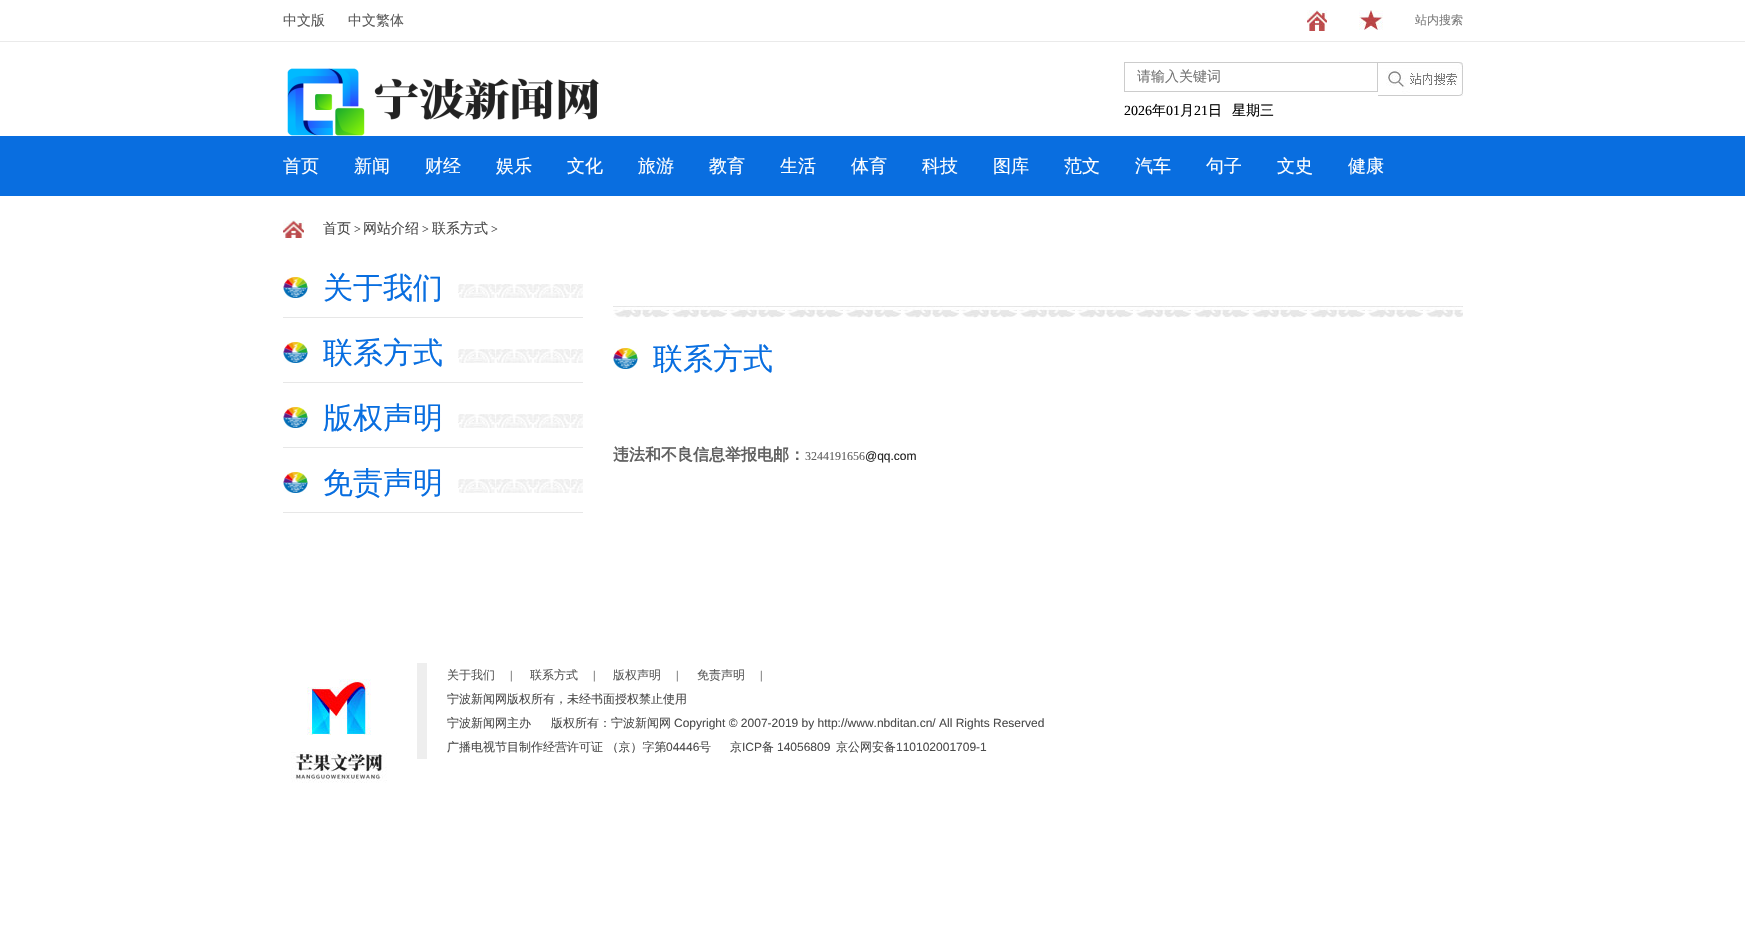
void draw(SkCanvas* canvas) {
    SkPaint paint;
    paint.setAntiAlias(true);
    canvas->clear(0xFFFFFFFF);
    paint.setColor(0xFFEAEAEA);
    canvas->drawRect(SkRect::MakeXYWH(0, 41, 1745, 1), paint);
    SkFont font1(fontMgr->matchFamilyStyle("WenQuanYi Zen Hei", SkFontStyle(500, SkFontStyle::kNormal_Width, SkFontStyle::kUpright_Slant)), 14);
    font1.setSubpixel(true);
    paint.setColor(0xFF595959);
    canvas->drawString("中文版", 283, 25, font1, paint);
    canvas->drawString("中文繁体", 348, 25, font1, paint);
    canvas->drawImageRect(SkImages::DeferredFromEncodedData(SkData::MakeFromFileName("img1.png")), SkRect::MakeXYWH(1307, 10, 20, 21), SkSamplingOptions());
    canvas->drawImageRect(SkImages::DeferredFromEncodedData(SkData::MakeFromFileName("img2.png")), SkRect::MakeXYWH(1359, 10, 24, 20), SkSamplingOptions());
    SkFont font2(fontMgr->matchFamilyStyle("WenQuanYi Zen Hei", SkFontStyle(500, SkFontStyle::kNormal_Width, SkFontStyle::kUpright_Slant)), 12);
    font2.setSubpixel(true);
    paint.setColor(0xFF7B7B7B);
    canvas->drawString("站内搜索", 1415, 24, font2, paint);
    canvas->drawImageRect(SkImages::DeferredFromEncodedData(SkData::MakeFromFileName("img3.png")), SkRect::MakeXYWH(287, 68, 312, 68), SkSamplingOptions());
    paint.setStyle(SkPaint::kStroke_Style);
    paint.setStrokeWidth(1);
    paint.setColor(0xFFCCCCCC);
    canvas->drawRect(SkRect::MakeXYWH(1124.5f, 62.5f, 253, 29), paint);
    paint.setStyle(SkPaint::kFill_Style);
    paint.setColor(0xFF757575);
    canvas->drawString("请输入关键词", 1137, 81, font1, paint);
    canvas->drawImageRect(SkImages::DeferredFromEncodedData(SkData::MakeFromFileName("img4.png")), SkRect::MakeXYWH(1378, 62, 85, 34), SkSamplingOptions());
    SkFont font3(fontMgr->matchFamilyStyle("Liberation Serif", SkFontStyle::Normal()), 14);
    font3.setSubpixel(true);
    paint.setColor(0xFF000000);
    canvas->drawString("2026", 1124, 115, font3, paint);
    canvas->drawString("年", 1152, 115, font1, paint);
    canvas->drawString("01", 1166, 115, font3, paint);
    canvas->drawString("月", 1180, 115, font1, paint);
    canvas->drawString("21", 1194, 115, font3, paint);
    canvas->drawString("日", 1208, 115, font1, paint);
    canvas->drawString("星期三", 1232, 115, font1, paint);
    paint.setColor(0xFF096EE0);
    canvas->drawRect(SkRect::MakeXYWH(0, 136, 1745, 60), paint);
    SkFont font4(fontMgr->matchFamilyStyle("WenQuanYi Zen Hei", SkFontStyle(500, SkFontStyle::kNormal_Width, SkFontStyle::kUpright_Slant)), 18);
    font4.setSubpixel(true);
    paint.setColor(0xFFFFFFFF);
    canvas->drawString("首页", 283, 172, font4, paint);
    canvas->drawString("新闻", 354, 172, font4, paint);
    canvas->drawString("财经", 425, 172, font4, paint);
    canvas->drawString("娱乐", 496, 172, font4, paint);
    canvas->drawString("文化", 567, 172, font4, paint);
    canvas->drawString("旅游", 638, 172, font4, paint);
    canvas->drawString("教育", 709, 172, font4, paint);
    canvas->drawString("生活", 780, 172, font4, paint);
    canvas->drawString("体育", 851, 172, font4, paint);
    canvas->drawString("科技", 922, 172, font4, paint);
    canvas->drawString("图库", 993, 172, font4, paint);
    canvas->drawString("范文", 1064, 172, font4, paint);
    canvas->drawString("汽车", 1135, 172, font4, paint);
    canvas->drawString("句子", 1206, 172, font4, paint);
    canvas->drawString("文史", 1277, 172, font4, paint);
    canvas->drawString("健康", 1348, 172, font4, paint);
    canvas->drawImageRect(SkImages::DeferredFromEncodedData(SkData::MakeFromFileName("img5.png")), SkRect::MakeXYWH(283, 220, 21, 18), SkSamplingOptions());
    paint.setColor(0xFF4B4B4B);
    canvas->drawString("首页", 323, 233, font1, paint);
    SkFont font5(fontMgr->matchFamilyStyle("Liberation Serif", SkFontStyle::Normal()), 12);
    font5.setSubpixel(true);
    canvas->drawString(">", 354, 233, font5, paint);
    canvas->drawString("网站介绍", 363, 233, font1, paint);
    canvas->drawString(">", 422, 233, font5, paint);
    canvas->drawString("联系方式", 432, 233, font1, paint);
    canvas->drawString(">", 491, 233, font5, paint);
    paint.setColor(0xFFE7E7E7);
    canvas->drawRect(SkRect::MakeXYWH(283, 317, 300, 1), paint);
    canvas->drawImageRect(SkImages::DeferredFromEncodedData(SkData::MakeFromFileName("img6.png")), SkRect::MakeXYWH(283, 277, 25, 21), SkSamplingOptions());
    SkFont font6(fontMgr->matchFamilyStyle("WenQuanYi Zen Hei", SkFontStyle(500, SkFontStyle::kNormal_Width, SkFontStyle::kUpright_Slant)), 30);
    font6.setSubpixel(true);
    paint.setColor(0xFF086EE0);
    canvas->drawString("关于我们", 323, 298, font6, paint);
    canvas->drawImageRect(SkImages::DeferredFromEncodedData(SkData::MakeFromFileName("img7.png")), SkRect::MakeXYWH(458, 284, 125, 14), SkSamplingOptions());
    paint.setColor(0xFFE7E7E7);
    canvas->drawRect(SkRect::MakeXYWH(283, 382, 300, 1), paint);
    canvas->drawImageRect(SkImages::DeferredFromEncodedData(SkData::MakeFromFileName("img6.png")), SkRect::MakeXYWH(283, 342, 25, 21), SkSamplingOptions());
    paint.setColor(0xFF086EE0);
    canvas->drawString("联系方式", 323, 363, font6, paint);
    canvas->drawImageRect(SkImages::DeferredFromEncodedData(SkData::MakeFromFileName("img7.png")), SkRect::MakeXYWH(458, 349, 125, 14), SkSamplingOptions());
    paint.setColor(0xFFE7E7E7);
    canvas->drawRect(SkRect::MakeXYWH(283, 447, 300, 1), paint);
    canvas->drawImageRect(SkImages::DeferredFromEncodedData(SkData::MakeFromFileName("img6.png")), SkRect::MakeXYWH(283, 407, 25, 21), SkSamplingOptions());
    paint.setColor(0xFF086EE0);
    canvas->drawString("版权声明", 323, 428, font6, paint);
    canvas->drawImageRect(SkImages::DeferredFromEncodedData(SkData::MakeFromFileName("img7.png")), SkRect::MakeXYWH(458, 414, 125, 14), SkSamplingOptions());
    paint.setColor(0xFFE7E7E7);
    canvas->drawRect(SkRect::MakeXYWH(283, 512, 300, 1), paint);
    canvas->drawImageRect(SkImages::DeferredFromEncodedData(SkData::MakeFromFileName("img6.png")), SkRect::MakeXYWH(283, 472, 25, 21), SkSamplingOptions());
    paint.setColor(0xFF086EE0);
    canvas->drawString("免责声明", 323, 493, font6, paint);
    canvas->drawImageRect(SkImages::DeferredFromEncodedData(SkData::MakeFromFileName("img7.png")), SkRect::MakeXYWH(458, 479, 125, 14), SkSamplingOptions());
    canvas->drawImageRect(SkImages::DeferredFromEncodedData(SkData::MakeFromFileName("img8.png")), SkRect::MakeXYWH(613, 306, 850, 12), SkSamplingOptions());
    canvas->drawImageRect(SkImages::DeferredFromEncodedData(SkData::MakeFromFileName("img9.png")), SkRect::MakeXYWH(613, 348, 25, 21), SkSamplingOptions());
    canvas->drawString("联系方式", 653, 369, font6, paint);
    SkFont font7(fontMgr->matchFamilyStyle("WenQuanYi Zen Hei", SkFontStyle::Bold()), 16);
    font7.setSubpixel(true);
    paint.setColor(0xFF606060);
    canvas->drawString("违法和不良信息举报电邮：", 613, 460, font7, paint);
    canvas->drawString("3244191656", 805, 460, font5, paint);
    SkFont font8(fontMgr->matchFamilyStyle("Liberation Sans", SkFontStyle::Normal()), 12);
    font8.setSubpixel(true);
    paint.setColor(0xFF222222);
    canvas->drawString("@qq.com", 865, 460, font8, paint);
    canvas->drawImageRect(SkImages::DeferredFromEncodedData(SkData::MakeFromFileName("img10.png")), SkRect::MakeXYWH(291, 679, 96, 104), SkSamplingOptions());
    paint.setColor(0xFFEEEEEE);
    canvas->drawRect(SkRect::MakeXYWH(417, 663, 10, 96), paint);
    paint.setColor(0xFF595959);
    canvas->drawString("关于我们", 447, 679, font2, paint);
    paint.setColor(0xFF4B4B4B);
    canvas->drawString("|", 510, 679, font5, paint);
    paint.setColor(0xFF595959);
    canvas->drawString("联系方式", 530, 679, font2, paint);
    paint.setColor(0xFF4B4B4B);
    canvas->drawString("|", 593, 679, font5, paint);
    paint.setColor(0xFF595959);
    canvas->drawString("版权声明", 613, 679, font2, paint);
    paint.setColor(0xFF4B4B4B);
    canvas->drawString("|", 676, 679, font5, paint);
    paint.setColor(0xFF595959);
    canvas->drawString("免责声明", 697, 679, font2, paint);
    paint.setColor(0xFF4B4B4B);
    canvas->drawString("|", 760, 679, font5, paint);
    canvas->drawString("宁波新闻网版权所有，未经书面授权禁止使用", 447, 703, font2, paint);
    canvas->drawString("宁波新闻网主办", 447, 727, font2, paint);
    canvas->drawString("版权所有：宁波新闻网", 551, 727, font2, paint);
    canvas->drawString("Copyright © 2007-2019 by http://www.nbditan.cn/ All Rights Reserved", 674, 727, font8, paint);
    canvas->drawString("广播电视节目制作经营许可证 （京）字第", 447, 751, font2, paint);
    canvas->drawString("04446", 666, 751, font8, paint);
    canvas->drawString("号", 699, 751, font2, paint);
    canvas->drawString("京", 730, 751, font2, paint);
    canvas->drawString("ICP", 742, 751, font8, paint);
    canvas->drawString("备", 762, 751, font2, paint);
    canvas->drawString("14056809", 777, 751, font8, paint);
    canvas->drawString("京公网安备", 836, 751, font2, paint);
    canvas->drawString("110102001709-1", 896, 751, font8, paint);
}
